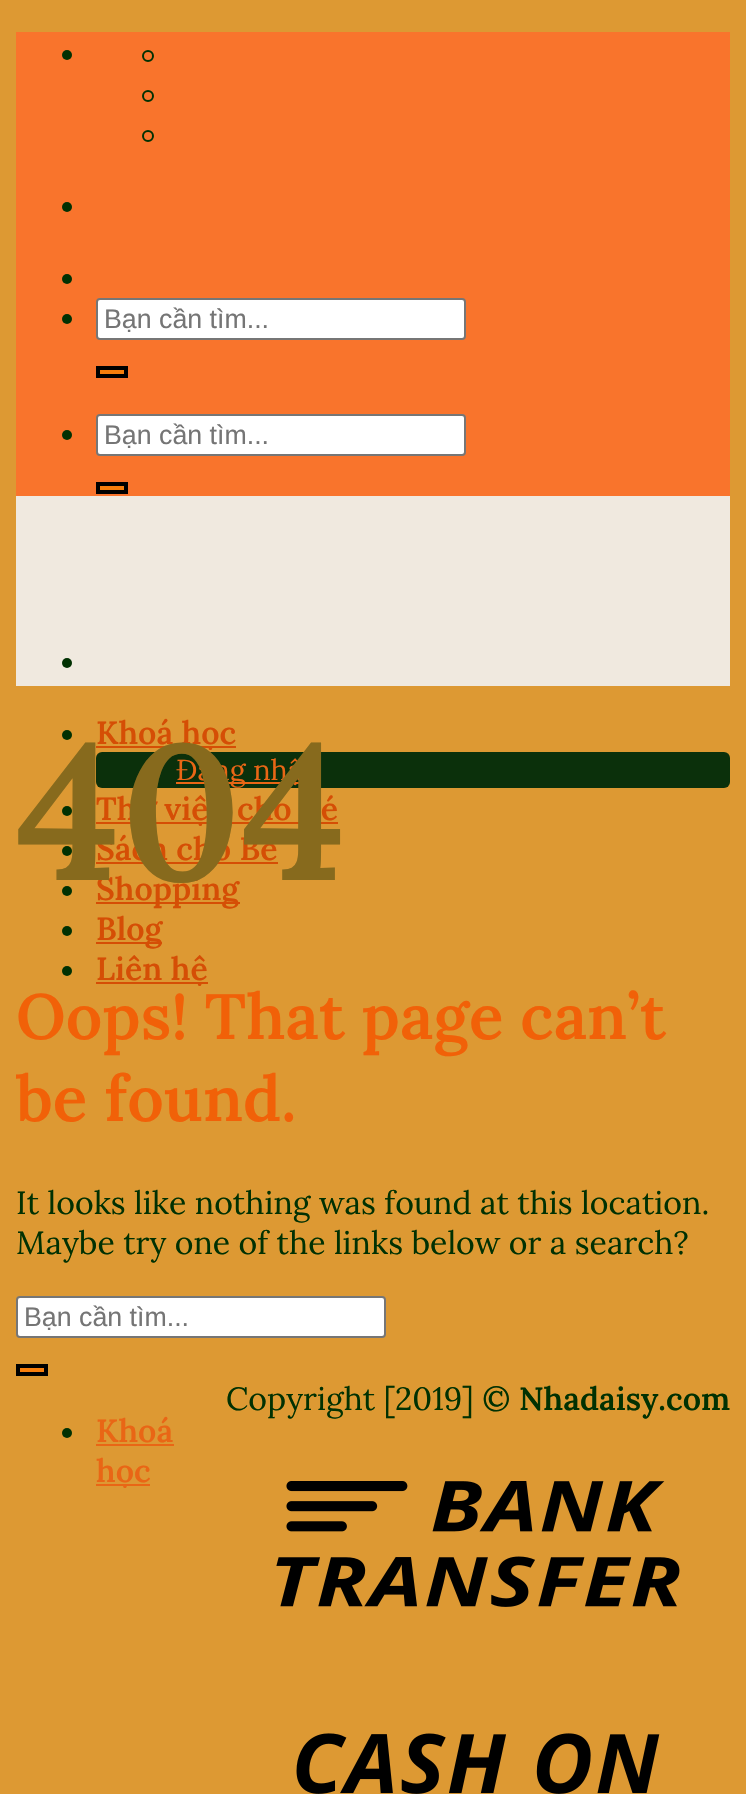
void draw(SkCanvas* canvas) {
    SkPaint paint;
    paint.setAntiAlias(true);
    canvas->clear(0xFFDD9933);
    paint.setColor(0xFFF0E9DF);
    canvas->drawRect(SkRect::MakeXYWH(16, 496, 714, 190), paint);
    paint.setColor(0xFFF9742C);
    canvas->drawRect(SkRect::MakeXYWH(16, 32, 714, 464), paint);
    paint.setColor(0xFF013102);
    canvas->drawCircle(67, 55, 5, paint);
    paint.setStyle(SkPaint::kStroke_Style);
    paint.setStrokeWidth(2);
    canvas->drawCircle(148, 56, 5, paint);
    canvas->drawCircle(148, 96, 5, paint);
    canvas->drawCircle(148, 136, 5, paint);
    paint.setStyle(SkPaint::kFill_Style);
    canvas->drawCircle(67, 207, 5, paint);
    canvas->drawCircle(67, 279, 5, paint);
    canvas->drawCircle(67, 319, 5, paint);
    paint.setColor(0xFFFFFFFF);
    canvas->drawRoundRect(SkRect::MakeXYWH(97, 299, 368, 40), 3, 3, paint);
    paint.setStyle(SkPaint::kStroke_Style);
    paint.setColor(0xFF767676);
    canvas->drawRoundRect(SkRect::MakeXYWH(97, 299, 368, 40), 3, 3, paint);
    SkFont font1(fontMgr->matchFamilyStyle("Liberation Sans", SkFontStyle::Normal()), 26.75f);
    font1.setSubpixel(true);
    paint.setStyle(SkPaint::kFill_Style);
    paint.setColor(0xFF757575);
    canvas->drawString("Bạn cần tìm...", 104, 328, font1, paint);
    paint.setColor(0xFFF77E0C);
    canvas->drawRect(SkRect::MakeXYWH(98, 368, 28, 8), paint);
    paint.setStyle(SkPaint::kStroke_Style);
    paint.setStrokeWidth(4);
    paint.setColor(0xFF000000);
    canvas->drawRect(SkRect::MakeXYWH(98, 368, 28, 8), paint);
    paint.setStyle(SkPaint::kFill_Style);
    paint.setColor(0xFF013102);
    canvas->drawCircle(67, 435, 5, paint);
    paint.setColor(0xFFFFFFFF);
    canvas->drawRoundRect(SkRect::MakeXYWH(97, 415, 368, 40), 3, 3, paint);
    paint.setStyle(SkPaint::kStroke_Style);
    paint.setStrokeWidth(2);
    paint.setColor(0xFF767676);
    canvas->drawRoundRect(SkRect::MakeXYWH(97, 415, 368, 40), 3, 3, paint);
    paint.setStyle(SkPaint::kFill_Style);
    paint.setColor(0xFF757575);
    canvas->drawString("Bạn cần tìm...", 104, 444, font1, paint);
    paint.setColor(0xFFF77E0C);
    canvas->drawRect(SkRect::MakeXYWH(98, 484, 28, 8), paint);
    paint.setStyle(SkPaint::kStroke_Style);
    paint.setStrokeWidth(4);
    paint.setColor(0xFF000000);
    canvas->drawRect(SkRect::MakeXYWH(98, 484, 28, 8), paint);
    paint.setStyle(SkPaint::kFill_Style);
    paint.setColor(0xFF013102);
    canvas->drawCircle(67, 663, 5, paint);
    canvas->drawCircle(67, 735, 5, paint);
    paint.setColor(0xFFD54E05);
    canvas->drawRect(SkRect::MakeXYWH(96, 746, 140, 2), paint);
    SkFont font2(fontMgr->matchFamilyStyle("Lora", SkFontStyle(600, SkFontStyle::kNormal_Width, SkFontStyle::kUpright_Slant)), 32);
    font2.setSubpixel(true);
    canvas->drawString("Khoá học", 96, 744, font2, paint);
    paint.setColor(0xFF0B300B);
    canvas->drawRoundRect(SkRect::MakeXYWH(96, 752, 634, 36), 6, 6, paint);
    paint.setStyle(SkPaint::kStroke_Style);
    paint.setStrokeWidth(2);
    paint.setColor(0xFF013102);
    canvas->drawCircle(150, 772, 5, paint);
    paint.setStyle(SkPaint::kFill_Style);
    paint.setColor(0xFFE96615);
    canvas->drawRect(SkRect::MakeXYWH(176, 782, 144, 2), paint);
    SkFont font3(fontMgr->matchFamilyStyle("Lora", SkFontStyle::Normal()), 28.75f);
    font3.setSubpixel(true);
    canvas->drawString("Đăng nhập", 176, 780, font3, paint);
    paint.setColor(0xFF013102);
    canvas->drawCircle(67, 811, 5, paint);
    paint.setColor(0xFFD54E05);
    canvas->drawRect(SkRect::MakeXYWH(96, 822, 242, 2), paint);
    canvas->drawString("Thư viện cho Bé", 96, 820, font2, paint);
    paint.setColor(0xFF013102);
    canvas->drawCircle(67, 851, 5, paint);
    paint.setColor(0xFFD54E05);
    canvas->drawString("Sách cho Bé", 96, 860, font2, paint);
    canvas->drawRect(SkRect::MakeXYWH(96, 862, 182, 2), paint);
    paint.setColor(0xFF013102);
    canvas->drawCircle(67, 891, 5, paint);
    paint.setColor(0xFFD54E05);
    canvas->drawRect(SkRect::MakeXYWH(96, 902, 144, 2), paint);
    canvas->drawString("Shopping", 96, 900, font2, paint);
    paint.setColor(0xFF013102);
    canvas->drawCircle(67, 931, 5, paint);
    paint.setColor(0xFFD54E05);
    canvas->drawRect(SkRect::MakeXYWH(96, 942, 66, 2), paint);
    canvas->drawString("Blog", 96, 940, font2, paint);
    paint.setColor(0xFF013102);
    canvas->drawCircle(67, 971, 5, paint);
    paint.setColor(0xFFD54E05);
    canvas->drawRect(SkRect::MakeXYWH(96, 982, 112, 2), paint);
    canvas->drawString("Liên hệ", 96, 980, font2, paint);
    SkFont font4(fontMgr->matchFamilyStyle("Lora", SkFontStyle(600, SkFontStyle::kNormal_Width, SkFontStyle::kUpright_Slant)), 192);
    font4.setSubpixel(true);
    paint.setColor(0xFF876A1D);
    canvas->drawString("404", 16, 880, font4, paint);
    SkFont font5(fontMgr->matchFamilyStyle("Lora", SkFontStyle(600, SkFontStyle::kNormal_Width, SkFontStyle::kUpright_Slant)), 64);
    font5.setSubpixel(true);
    paint.setColor(0xFFF16108);
    canvas->drawString("Oops! That page can’t", 16, 1039, font5, paint);
    canvas->drawString("be found.", 16, 1121, font5, paint);
    SkFont font6(fontMgr->matchFamilyStyle("Lora", SkFontStyle::Normal()), 32);
    font6.setSubpixel(true);
    paint.setColor(0xFF013102);
    canvas->drawString("It looks like nothing was found at this location.", 16, 1214, font6, paint);
    canvas->drawString("Maybe try one of the links below or a search?", 16, 1254, font6, paint);
    paint.setColor(0xFFFFFFFF);
    canvas->drawRoundRect(SkRect::MakeXYWH(17, 1297, 368, 40), 3, 3, paint);
    paint.setStyle(SkPaint::kStroke_Style);
    paint.setColor(0xFF767676);
    canvas->drawRoundRect(SkRect::MakeXYWH(17, 1297, 368, 40), 3, 3, paint);
    paint.setStyle(SkPaint::kFill_Style);
    paint.setColor(0xFF757575);
    canvas->drawString("Bạn cần tìm...", 24, 1326, font1, paint);
    paint.setColor(0xFFF77E0C);
    canvas->drawRect(SkRect::MakeXYWH(18, 1366, 28, 8), paint);
    paint.setStyle(SkPaint::kStroke_Style);
    paint.setStrokeWidth(4);
    paint.setColor(0xFF000000);
    canvas->drawRect(SkRect::MakeXYWH(18, 1366, 28, 8), paint);
    paint.setStyle(SkPaint::kFill_Style);
    paint.setColor(0xFF013102);
    canvas->drawString("Copyright [2019] ©", 226, 1410, font6, paint);
    canvas->drawString("Nhadaisy.com", 519, 1410, font2, paint);
    canvas->drawImageRect(SkImages::DeferredFromEncodedData(SkData::MakeFromFileName("img1.png")), SkRect::MakeXYWH(276, 1481, 404, 126), SkSamplingOptions());
    canvas->drawImageRect(SkImages::DeferredFromEncodedData(SkData::MakeFromFileName("img2.png")), SkRect::MakeXYWH(296, 1733, 364, 61), SkSamplingOptions());
    canvas->drawCircle(67, 1433, 5, paint);
    paint.setColor(0xFFE96615);
    canvas->drawString("Khoá", 96, 1442, font2, paint);
    canvas->drawRect(SkRect::MakeXYWH(96, 1444, 78, 2), paint);
    canvas->drawRect(SkRect::MakeXYWH(96, 1484, 54, 2), paint);
    canvas->drawString("học", 96, 1482, font2, paint);
}
